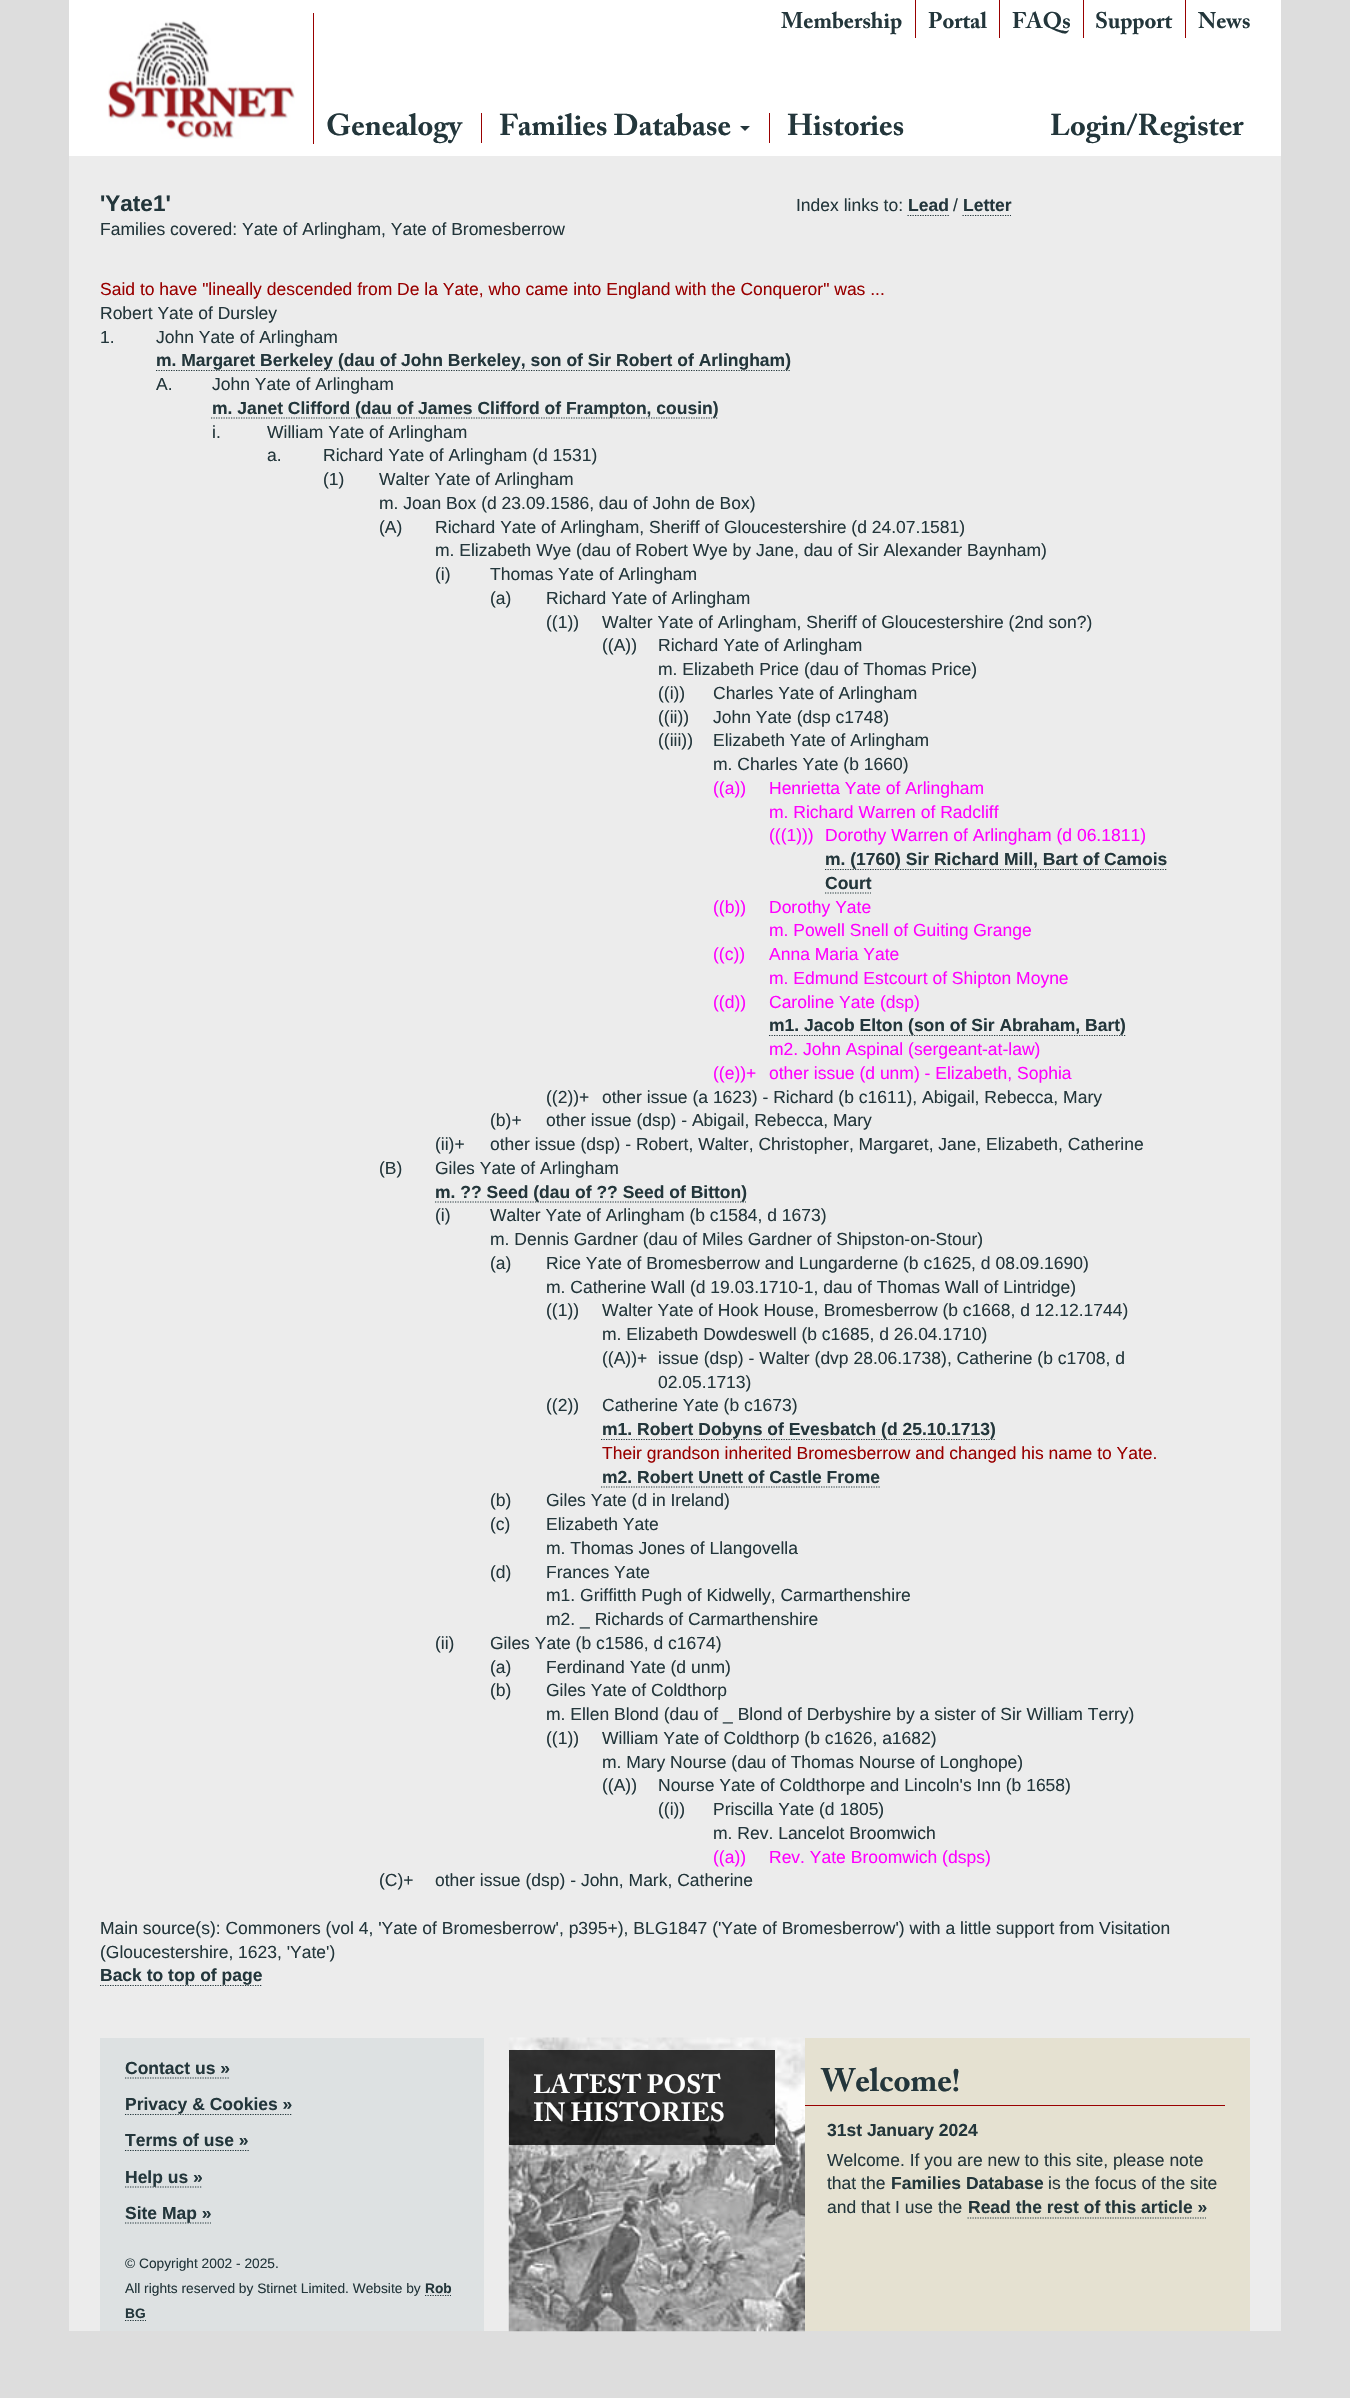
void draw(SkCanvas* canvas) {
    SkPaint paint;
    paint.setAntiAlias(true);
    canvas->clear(0xFFDDDDDD);
    paint.setColor(0xFFFFFFFF);
    canvas->drawRect(SkRect::MakeXYWH(69, 0, 1212, 156), paint);
    SkFont font1(fontMgr->matchFamilyStyle("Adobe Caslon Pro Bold", SkFontStyle::Bold()), 22.5f);
    font1.setSubpixel(true);
    paint.setColor(0xFF23363B);
    canvas->drawString("Membership", 781, 28, font1, paint);
    paint.setColor(0xFF990000);
    canvas->drawRect(SkRect::MakeXYWH(915, 0, 1, 38), paint);
    paint.setColor(0xFF23363B);
    canvas->drawString("Portal", 928, 28, font1, paint);
    paint.setColor(0xFF990000);
    canvas->drawRect(SkRect::MakeXYWH(999, 0, 1, 38), paint);
    paint.setColor(0xFF23363B);
    canvas->drawString("FAQs", 1012, 28, font1, paint);
    paint.setColor(0xFF990000);
    canvas->drawRect(SkRect::MakeXYWH(1083, 0, 1, 38), paint);
    paint.setColor(0xFF23363B);
    canvas->drawString("Support", 1095, 28, font1, paint);
    paint.setColor(0xFF990000);
    canvas->drawRect(SkRect::MakeXYWH(1185, 0, 1, 38), paint);
    paint.setColor(0xFF23363B);
    canvas->drawString("News", 1198, 28, font1, paint);
    paint.setColor(0xFF990000);
    canvas->drawRect(SkRect::MakeXYWH(313, 13, 1, 131), paint);
    canvas->drawImageRect(SkImages::DeferredFromEncodedData(SkData::MakeFromFileName("img1.png")), SkRect::MakeXYWH(108, 20, 187, 119), SkSamplingOptions());
    SkFont font2(fontMgr->matchFamilyStyle("Adobe Caslon Pro Bold", SkFontStyle::Bold()), 30);
    font2.setSubpixel(true);
    paint.setColor(0xFF23363B);
    canvas->drawString("Genealogy", 326, 135, font2, paint);
    paint.setColor(0xFF990000);
    canvas->drawRect(SkRect::MakeXYWH(481, 113, 1, 30), paint);
    paint.setColor(0xFF23363B);
    canvas->drawString("Families Database", 499, 135, font2, paint);
    canvas->drawPath(SkPathBuilder().moveTo(740, 126).lineTo(750, 126).lineTo(745, 131).close().detach(), paint);
    paint.setColor(0xFF990000);
    canvas->drawRect(SkRect::MakeXYWH(769, 113, 1, 30), paint);
    paint.setColor(0xFF23363B);
    canvas->drawString("Histories", 787, 135, font2, paint);
    canvas->drawString("Login/Register", 1050, 135, font2, paint);
    paint.setColor(0xFFECECEC);
    canvas->drawRect(SkRect::MakeXYWH(69, 156, 1212, 2175), paint);
    SkFont font3(fontMgr->matchFamilyStyle("Liberation Sans", SkFontStyle::Bold()), 22.5f);
    font3.setSubpixel(true);
    paint.setColor(0xFF23363B);
    canvas->drawString("'Yate1'", 100, 211, font3, paint);
    SkFont font4(fontMgr->matchFamilyStyle("Liberation Sans", SkFontStyle::Normal()), 17.5f);
    font4.setSubpixel(true);
    canvas->drawString("Index links to:", 796, 211, font4, paint);
    SkFont font5(fontMgr->matchFamilyStyle("Liberation Sans", SkFontStyle::Bold()), 17.5f);
    font5.setSubpixel(true);
    canvas->drawString("Lead", 908, 211, font5, paint);
    paint.setStyle(SkPaint::kStroke_Style);
    paint.setStrokeWidth(1.2f);
    paint.setPathEffect(SkDashPathEffect::Make({{1.25f, 1.25f}}, 0));
    canvas->drawPath(SkPathBuilder().moveTo(907.5f, 215.5f).lineTo(949, 215.5f).detach(), paint);
    paint.setPathEffect(nullptr);
    paint.setStyle(SkPaint::kFill_Style);
    canvas->drawString("/", 953, 211, font4, paint);
    canvas->drawString("Letter", 963, 211, font5, paint);
    paint.setStyle(SkPaint::kStroke_Style);
    paint.setPathEffect(SkDashPathEffect::Make({{1.25f, 1.25f}}, 0));
    canvas->drawPath(SkPathBuilder().moveTo(962.5f, 215.5f).lineTo(1011, 215.5f).detach(), paint);
    paint.setPathEffect(nullptr);
    paint.setStyle(SkPaint::kFill_Style);
    canvas->drawString("Families covered: Yate of Arlingham, Yate of Bromesberrow", 100, 235, font4, paint);
    paint.setColor(0xFF990000);
    canvas->drawString("Said to have \"lineally descended from De la Yate, who came into England with the Conqueror\" was ...", 100, 295, font4, paint);
    paint.setColor(0xFF23363B);
    canvas->drawString("Robert Yate of Dursley", 100, 319, font4, paint);
    canvas->drawString("1.", 100, 343, font4, paint);
    canvas->drawString("John Yate of Arlingham", 156, 343, font4, paint);
    paint.setStyle(SkPaint::kStroke_Style);
    paint.setPathEffect(SkDashPathEffect::Make({{1.25f, 1.25f}}, 0));
    canvas->drawPath(SkPathBuilder().moveTo(156, 370.5f).lineTo(791, 370.5f).detach(), paint);
    paint.setPathEffect(nullptr);
    paint.setStyle(SkPaint::kFill_Style);
    canvas->drawString("m. Margaret Berkeley (dau of John Berkeley, son of Sir Robert of Arlingham)", 156, 366, font5, paint);
    canvas->drawString("A.", 156, 390, font4, paint);
    canvas->drawString("John Yate of Arlingham", 212, 390, font4, paint);
    paint.setStyle(SkPaint::kStroke_Style);
    paint.setPathEffect(SkDashPathEffect::Make({{1.25f, 1.25f}}, 0));
    canvas->drawPath(SkPathBuilder().moveTo(211, 418).lineTo(717.5f, 418).detach(), paint);
    paint.setPathEffect(nullptr);
    paint.setStyle(SkPaint::kFill_Style);
    canvas->drawString("m. Janet Clifford (dau of James Clifford of Frampton, cousin)", 212, 414, font5, paint);
    canvas->drawString("i.", 212, 438, font4, paint);
    canvas->drawString("William Yate of Arlingham", 267, 438, font4, paint);
    canvas->drawString("a.", 267, 461, font4, paint);
    canvas->drawString("Richard Yate of Arlingham (d 1531)", 323, 461, font4, paint);
    canvas->drawString("(1)", 323, 485, font4, paint);
    canvas->drawString("Walter Yate of Arlingham", 379, 485, font4, paint);
    canvas->drawString("m. Joan Box (d 23.09.1586, dau of John de Box)", 379, 509, font4, paint);
    canvas->drawString("(A)", 379, 533, font4, paint);
    canvas->drawString("Richard Yate of Arlingham, Sheriff of Gloucestershire (d 24.07.1581)", 435, 533, font4, paint);
    canvas->drawString("m. Elizabeth Wye (dau of Robert Wye by Jane, dau of Sir Alexander Baynham)", 435, 556, font4, paint);
    canvas->drawString("(i)", 435, 580, font4, paint);
    canvas->drawString("Thomas Yate of Arlingham", 490, 580, font4, paint);
    canvas->drawString("(a)", 490, 604, font4, paint);
    canvas->drawString("Richard Yate of Arlingham", 546, 604, font4, paint);
    canvas->drawString("((1))", 546, 628, font4, paint);
    canvas->drawString("Walter Yate of Arlingham, Sheriff of Gloucestershire (2nd son?)", 602, 628, font4, paint);
    canvas->drawString("((A))", 602, 651, font4, paint);
    canvas->drawString("Richard Yate of Arlingham", 658, 651, font4, paint);
    canvas->drawString("m. Elizabeth Price (dau of Thomas Price)", 658, 675, font4, paint);
    canvas->drawString("((i))", 658, 699, font4, paint);
    canvas->drawString("Charles Yate of Arlingham", 713, 699, font4, paint);
    canvas->drawString("((ii))", 658, 723, font4, paint);
    canvas->drawString("John Yate (dsp c1748)", 713, 723, font4, paint);
    canvas->drawString("((iii))", 658, 746, font4, paint);
    canvas->drawString("Elizabeth Yate of Arlingham", 713, 746, font4, paint);
    canvas->drawString("m. Charles Yate (b 1660)", 713, 770, font4, paint);
    paint.setColor(0xFFFF00FF);
    canvas->drawString("((a))", 713, 794, font4, paint);
    canvas->drawString("Henrietta Yate of Arlingham", 769, 794, font4, paint);
    canvas->drawString("m. Richard Warren of Radcliff", 769, 818, font4, paint);
    canvas->drawString("(((1)))", 769, 841, font4, paint);
    canvas->drawString("Dorothy Warren of Arlingham (d 06.1811)", 825, 841, font4, paint);
    paint.setStyle(SkPaint::kStroke_Style);
    paint.setColor(0xFF23363B);
    paint.setPathEffect(SkDashPathEffect::Make({{1.25f, 1.25f}}, 0));
    canvas->drawPath(SkPathBuilder().moveTo(825, 869.5f).lineTo(1167.5f, 869.5f).detach(), paint);
    paint.setPathEffect(nullptr);
    paint.setStyle(SkPaint::kFill_Style);
    canvas->drawString("m. (1760) Sir Richard Mill, Bart of Camois", 825, 865, font5, paint);
    canvas->drawString("Court", 825, 889, font5, paint);
    paint.setStyle(SkPaint::kStroke_Style);
    paint.setPathEffect(SkDashPathEffect::Make({{1.25f, 1.25f}}, 0));
    canvas->drawPath(SkPathBuilder().moveTo(825, 893).lineTo(871, 893).detach(), paint);
    paint.setPathEffect(nullptr);
    paint.setStyle(SkPaint::kFill_Style);
    paint.setColor(0xFFFF00FF);
    canvas->drawString("((b))", 713, 913, font4, paint);
    canvas->drawString("Dorothy Yate", 769, 913, font4, paint);
    canvas->drawString("m. Powell Snell of Guiting Grange", 769, 936, font4, paint);
    canvas->drawString("((c))", 713, 960, font4, paint);
    canvas->drawString("Anna Maria Yate", 769, 960, font4, paint);
    canvas->drawString("m. Edmund Estcourt of Shipton Moyne", 769, 984, font4, paint);
    canvas->drawString("((d))", 713, 1008, font4, paint);
    canvas->drawString("Caroline Yate (dsp)", 769, 1008, font4, paint);
    paint.setStyle(SkPaint::kStroke_Style);
    paint.setColor(0xFF23363B);
    paint.setPathEffect(SkDashPathEffect::Make({{1.25f, 1.25f}}, 0));
    canvas->drawPath(SkPathBuilder().moveTo(769, 1035.5f).lineTo(1126, 1035.5f).detach(), paint);
    paint.setPathEffect(nullptr);
    paint.setStyle(SkPaint::kFill_Style);
    canvas->drawString("m1. Jacob Elton (son of Sir Abraham, Bart)", 769, 1031, font5, paint);
    paint.setColor(0xFFFF00FF);
    canvas->drawString("m2. John Aspinal (sergeant-at-law)", 769, 1055, font4, paint);
    canvas->drawString("((e))+", 713, 1079, font4, paint);
    canvas->drawString("other issue (d unm) - Elizabeth, Sophia", 769, 1079, font4, paint);
    paint.setColor(0xFF23363B);
    canvas->drawString("((2))+", 546, 1103, font4, paint);
    canvas->drawString("other issue (a 1623) - Richard (b c1611), Abigail, Rebecca, Mary", 602, 1103, font4, paint);
    canvas->drawString("(b)+", 490, 1126, font4, paint);
    canvas->drawString("other issue (dsp) - Abigail, Rebecca, Mary", 546, 1126, font4, paint);
    canvas->drawString("(ii)+", 435, 1150, font4, paint);
    canvas->drawString("other issue (dsp) - Robert, Walter, Christopher, Margaret, Jane, Elizabeth, Catherine", 490, 1150, font4, paint);
    canvas->drawString("(B)", 379, 1174, font4, paint);
    canvas->drawString("Giles Yate of Arlingham", 435, 1174, font4, paint);
    paint.setStyle(SkPaint::kStroke_Style);
    paint.setPathEffect(SkDashPathEffect::Make({{1.25f, 1.25f}}, 0));
    canvas->drawPath(SkPathBuilder().moveTo(435, 1202).lineTo(746, 1202).detach(), paint);
    paint.setPathEffect(nullptr);
    paint.setStyle(SkPaint::kFill_Style);
    canvas->drawString("m. ?\077 Seed (dau of ?\077 Seed of Bitton)", 435, 1198, font5, paint);
    canvas->drawString("(i)", 435, 1221, font4, paint);
    canvas->drawString("Walter Yate of Arlingham (b c1584, d 1673)", 490, 1221, font4, paint);
    canvas->drawString("m. Dennis Gardner (dau of Miles Gardner of Shipston-on-Stour)", 490, 1245, font4, paint);
    canvas->drawString("(a)", 490, 1269, font4, paint);
    canvas->drawString("Rice Yate of Bromesberrow and Lungarderne (b c1625, d 08.09.1690)", 546, 1269, font4, paint);
    canvas->drawString("m. Catherine Wall (d 19.03.1710-1, dau of Thomas Wall of Lintridge)", 546, 1293, font4, paint);
    canvas->drawString("((1))", 546, 1316, font4, paint);
    canvas->drawString("Walter Yate of Hook House, Bromesberrow (b c1668, d 12.12.1744)", 602, 1316, font4, paint);
    canvas->drawString("m. Elizabeth Dowdeswell (b c1685, d 26.04.1710)", 602, 1340, font4, paint);
    canvas->drawString("((A))+", 602, 1364, font4, paint);
    canvas->drawString("issue (dsp) - Walter (dvp 28.06.1738), Catherine (b c1708, d", 658, 1364, font4, paint);
    canvas->drawString("02.05.1713)", 658, 1388, font4, paint);
    canvas->drawString("((2))", 546, 1411, font4, paint);
    canvas->drawString("Catherine Yate (b c1673)", 602, 1411, font4, paint);
    paint.setStyle(SkPaint::kStroke_Style);
    paint.setPathEffect(SkDashPathEffect::Make({{1.25f, 1.25f}}, 0));
    canvas->drawPath(SkPathBuilder().moveTo(601, 1439.5f).lineTo(996, 1439.5f).detach(), paint);
    paint.setPathEffect(nullptr);
    paint.setStyle(SkPaint::kFill_Style);
    canvas->drawString("m1. Robert Dobyns of Evesbatch (d 25.10.1713)", 602, 1435, font5, paint);
    paint.setColor(0xFF990000);
    canvas->drawString("Their grandson inherited Bromesberrow and changed his name to Yate.", 602, 1459, font4, paint);
    paint.setColor(0xFF23363B);
    canvas->drawString("m2. Robert Unett of Castle Frome", 602, 1483, font5, paint);
    paint.setStyle(SkPaint::kStroke_Style);
    paint.setPathEffect(SkDashPathEffect::Make({{1.25f, 1.25f}}, 0));
    canvas->drawPath(SkPathBuilder().moveTo(601, 1487).lineTo(880, 1487).detach(), paint);
    paint.setPathEffect(nullptr);
    paint.setStyle(SkPaint::kFill_Style);
    canvas->drawString("(b)", 490, 1506, font4, paint);
    canvas->drawString("Giles Yate (d in Ireland)", 546, 1506, font4, paint);
    canvas->drawString("(c)", 490, 1530, font4, paint);
    canvas->drawString("Elizabeth Yate", 546, 1530, font4, paint);
    canvas->drawString("m. Thomas Jones of Llangovella", 546, 1554, font4, paint);
    canvas->drawString("(d)", 490, 1578, font4, paint);
    canvas->drawString("Frances Yate", 546, 1578, font4, paint);
    canvas->drawString("m1. Griffitth Pugh of Kidwelly, Carmarthenshire", 546, 1601, font4, paint);
    canvas->drawString("m2. _ Richards of Carmarthenshire", 546, 1625, font4, paint);
    canvas->drawString("(ii)", 435, 1649, font4, paint);
    canvas->drawString("Giles Yate (b c1586, d c1674)", 490, 1649, font4, paint);
    canvas->drawString("(a)", 490, 1673, font4, paint);
    canvas->drawString("Ferdinand Yate (d unm)", 546, 1673, font4, paint);
    canvas->drawString("(b)", 490, 1696, font4, paint);
    canvas->drawString("Giles Yate of Coldthorp", 546, 1696, font4, paint);
    canvas->drawString("m. Ellen Blond (dau of _ Blond of Derbyshire by a sister of Sir William Terry)", 546, 1720, font4, paint);
    canvas->drawString("((1))", 546, 1744, font4, paint);
    canvas->drawString("William Yate of Coldthorp (b c1626, a1682)", 602, 1744, font4, paint);
    canvas->drawString("m. Mary Nourse (dau of Thomas Nourse of Longhope)", 602, 1768, font4, paint);
    canvas->drawString("((A))", 602, 1791, font4, paint);
    canvas->drawString("Nourse Yate of Coldthorpe and Lincoln's Inn (b 1658)", 658, 1791, font4, paint);
    canvas->drawString("((i))", 658, 1815, font4, paint);
    canvas->drawString("Priscilla Yate (d 1805)", 713, 1815, font4, paint);
    canvas->drawString("m. Rev. Lancelot Broomwich", 713, 1839, font4, paint);
    paint.setColor(0xFFFF00FF);
    canvas->drawString("((a))", 713, 1863, font4, paint);
    canvas->drawString("Rev. Yate Broomwich (dsps)", 769, 1863, font4, paint);
    paint.setColor(0xFF23363B);
    canvas->drawString("(C)+", 379, 1886, font4, paint);
    canvas->drawString("other issue (dsp) - John, Mark, Catherine", 435, 1886, font4, paint);
    canvas->drawString("Main source(s): Commoners (vol 4, 'Yate of Bromesberrow', p395+), BLG1847 ('Yate of Bromesberrow') with a little support from Visitation", 100, 1934, font4, paint);
    canvas->drawString("(Gloucestershire, 1623, 'Yate')", 100, 1958, font4, paint);
    paint.setStyle(SkPaint::kStroke_Style);
    paint.setPathEffect(SkDashPathEffect::Make({{1.25f, 1.25f}}, 0));
    canvas->drawPath(SkPathBuilder().moveTo(100, 1985.5f).lineTo(262.5f, 1985.5f).detach(), paint);
    paint.setPathEffect(nullptr);
    paint.setStyle(SkPaint::kFill_Style);
    canvas->drawString("Back to top of page", 100, 1981, font5, paint);
    paint.setColor(0xFFDDE1E2);
    canvas->drawRect(SkRect::MakeXYWH(100, 2038, 384, 293), paint);
    paint.setColor(0xFF23363B);
    canvas->drawString("Contact us »", 125, 2074, font5, paint);
    paint.setStyle(SkPaint::kStroke_Style);
    paint.setPathEffect(SkDashPathEffect::Make({{1.25f, 1.25f}}, 0));
    canvas->drawPath(SkPathBuilder().moveTo(125, 2078).lineTo(230, 2078).detach(), paint);
    paint.setPathEffect(nullptr);
    paint.setPathEffect(SkDashPathEffect::Make({{1.25f, 1.25f}}, 0));
    canvas->drawPath(SkPathBuilder().moveTo(125, 2114.5f).lineTo(292.5f, 2114.5f).detach(), paint);
    paint.setPathEffect(nullptr);
    paint.setStyle(SkPaint::kFill_Style);
    canvas->drawString("Privacy & Cookies »", 125, 2110, font5, paint);
    canvas->drawString("Terms of use »", 125, 2146, font5, paint);
    paint.setStyle(SkPaint::kStroke_Style);
    paint.setPathEffect(SkDashPathEffect::Make({{1.25f, 1.25f}}, 0));
    canvas->drawPath(SkPathBuilder().moveTo(125, 2150.5f).lineTo(249, 2150.5f).detach(), paint);
    paint.setPathEffect(nullptr);
    paint.setPathEffect(SkDashPathEffect::Make({{1.25f, 1.25f}}, 0));
    canvas->drawPath(SkPathBuilder().moveTo(125, 2187).lineTo(202.5f, 2187).detach(), paint);
    paint.setPathEffect(nullptr);
    paint.setStyle(SkPaint::kFill_Style);
    canvas->drawString("Help us »", 125, 2183, font5, paint);
    paint.setStyle(SkPaint::kStroke_Style);
    paint.setPathEffect(SkDashPathEffect::Make({{1.25f, 1.25f}}, 0));
    canvas->drawPath(SkPathBuilder().moveTo(125, 2223).lineTo(211, 2223).detach(), paint);
    paint.setPathEffect(nullptr);
    paint.setStyle(SkPaint::kFill_Style);
    canvas->drawString("Site Map »", 125, 2219, font5, paint);
    SkFont font6(fontMgr->matchFamilyStyle("Liberation Sans", SkFontStyle::Normal()), 13.75f);
    font6.setSubpixel(true);
    canvas->drawString("© Copyright 2002 - 2025.", 125, 2268, font6, paint);
    canvas->drawString("All rights reserved by Stirnet Limited. Website by", 125, 2293, font6, paint);
    SkFont font7(fontMgr->matchFamilyStyle("Liberation Sans", SkFontStyle::Bold()), 13.75f);
    font7.setSubpixel(true);
    canvas->drawString("Rob", 425, 2293, font7, paint);
    paint.setStyle(SkPaint::kStroke_Style);
    paint.setPathEffect(SkDashPathEffect::Make({{1.25f, 1.25f}}, 0));
    canvas->drawPath(SkPathBuilder().moveTo(425, 2295.5f).lineTo(451, 2295.5f).detach(), paint);
    paint.setPathEffect(nullptr);
    paint.setStyle(SkPaint::kFill_Style);
    canvas->drawString("BG", 125, 2318, font7, paint);
    paint.setStyle(SkPaint::kStroke_Style);
    paint.setPathEffect(SkDashPathEffect::Make({{1.25f, 1.25f}}, 0));
    canvas->drawPath(SkPathBuilder().moveTo(125, 2320.5f).lineTo(146, 2320.5f).detach(), paint);
    paint.setPathEffect(nullptr);
    paint.setStyle(SkPaint::kFill_Style);
    paint.setColor(0xFFE5E1D1);
    canvas->drawRect(SkRect::MakeXYWH(805, 2038, 445, 293), paint);
    canvas->drawImageRect(SkImages::DeferredFromEncodedData(SkData::MakeFromFileName("img2.png")), SkRect::MakeXYWH(508, 2037, 297, 295), SkSamplingOptions());
    paint.setColor(0xCC000000);
    canvas->drawRect(SkRect::MakeXYWH(509, 2050, 266, 95), paint);
    SkFont font8(fontMgr->matchFamilyStyle("Adobe Caslon Pro Bold", SkFontStyle::Bold()), 26.25f);
    font8.setSubpixel(true);
    paint.setColor(0xFFFFFFFF);
    canvas->drawString("LATEST POST", 533, 2093, font8, paint);
    canvas->drawString("IN HISTORIES", 533, 2121, font8, paint);
    paint.setColor(0xFF990000);
    canvas->drawRect(SkRect::MakeXYWH(805, 2105, 420, 1), paint);
    SkFont font9(fontMgr->matchFamilyStyle("Adobe Caslon Pro Bold", SkFontStyle::Bold()), 32.5f);
    font9.setSubpixel(true);
    paint.setColor(0xFF23363B);
    canvas->drawString("Welcome!", 821, 2091, font9, paint);
    canvas->drawString("31st January 2024", 827, 2136, font5, paint);
    canvas->drawString("Welcome. If you are new to this site, please note", 827, 2166, font4, paint);
    canvas->drawString("that the", 827, 2189, font4, paint);
    canvas->drawString("Families Database", 891, 2189, font5, paint);
    canvas->drawString("is the focus of the site", 1048, 2189, font4, paint);
    canvas->drawString("and that I use the", 827, 2213, font4, paint);
    canvas->drawString("Read the rest of this article »", 968, 2213, font5, paint);
    paint.setStyle(SkPaint::kStroke_Style);
    paint.setPathEffect(SkDashPathEffect::Make({{1.25f, 1.25f}}, 0));
    canvas->drawPath(SkPathBuilder().moveTo(967.5f, 2218).lineTo(1206, 2218).detach(), paint);
    paint.setPathEffect(nullptr);
}
